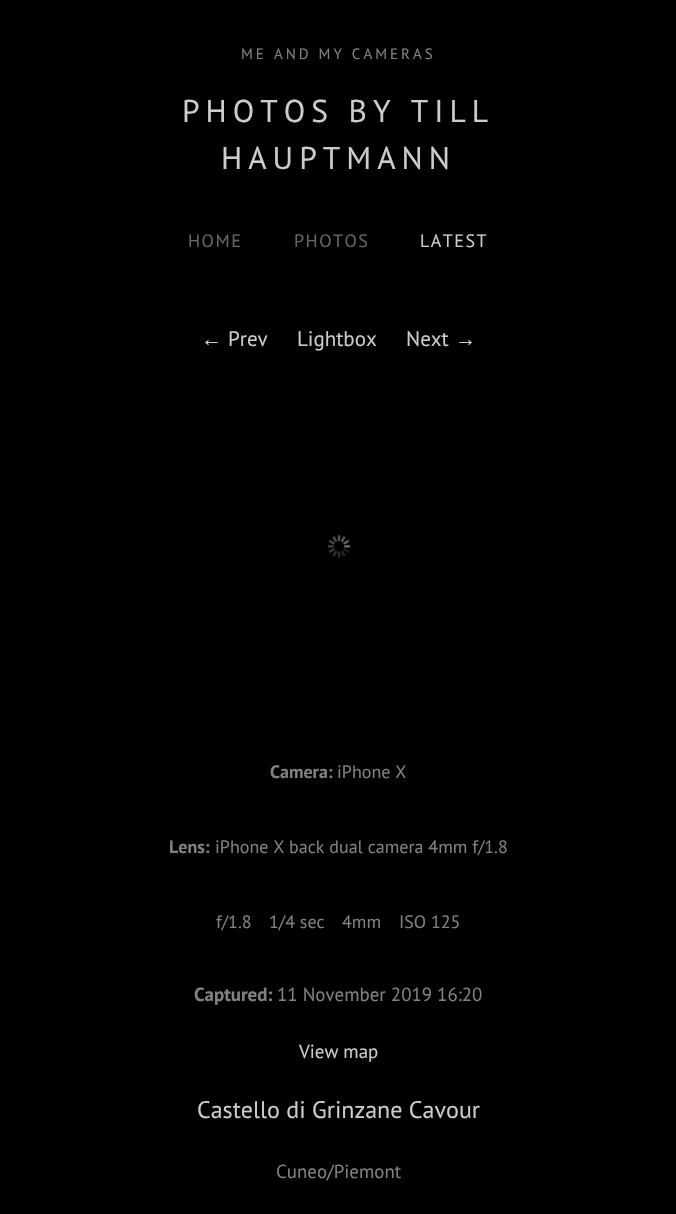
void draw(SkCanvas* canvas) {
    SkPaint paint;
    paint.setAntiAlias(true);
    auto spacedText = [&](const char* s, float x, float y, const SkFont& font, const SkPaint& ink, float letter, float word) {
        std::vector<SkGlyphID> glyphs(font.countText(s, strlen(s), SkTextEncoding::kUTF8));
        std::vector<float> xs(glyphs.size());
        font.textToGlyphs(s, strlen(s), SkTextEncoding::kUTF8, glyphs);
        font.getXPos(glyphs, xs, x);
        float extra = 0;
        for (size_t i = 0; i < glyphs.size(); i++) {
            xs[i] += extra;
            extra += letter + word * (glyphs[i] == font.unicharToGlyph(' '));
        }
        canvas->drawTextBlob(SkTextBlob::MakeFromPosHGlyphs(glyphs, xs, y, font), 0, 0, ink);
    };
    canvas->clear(0xFF000000);
    SkFont font1(fontMgr->matchFamilyStyle("PT Sans", SkFontStyle::Normal()), 15);
    font1.setSubpixel(true);
    paint.setColor(0xFF818181);
    spacedText("ME AND MY CAMERAS", 241, 59, font1, paint, 3, 0);
    SkFont font2(fontMgr->matchFamilyStyle("PT Sans", SkFontStyle::Normal()), 31.5f);
    font2.setSubpixel(true);
    paint.setColor(0xFFCCCCCC);
    spacedText("PHOTOS BY TILL", 182, 122, font2, paint, 6, 0);
    spacedText("HAUPTMANN", 221, 169, font2, paint, 6, 0);
    SkFont font3(fontMgr->matchFamilyStyle("PT Sans", SkFontStyle::Normal()), 18);
    font3.setSubpixel(true);
    paint.setColor(0xFF666666);
    spacedText("HOME", 188, 247, font3, paint, 1.5f, 0);
    spacedText("PHOTOS", 294, 247, font3, paint, 1.5f, 0);
    paint.setColor(0xFFCCCCCC);
    spacedText("LATEST", 420, 247, font3, paint, 1.5f, 0);
    SkFont font4(fontMgr->matchFamilyStyle("Liberation Sans", SkFontStyle::Normal()), 21);
    font4.setSubpixel(true);
    canvas->drawString("←", 201, 346, font4, paint);
    SkFont font5(fontMgr->matchFamilyStyle("PT Sans", SkFontStyle::Normal()), 21);
    font5.setSubpixel(true);
    canvas->drawString("Prev", 228, 346, font5, paint);
    canvas->drawString("Lightbox", 297, 346, font5, paint);
    canvas->drawString("Next", 406, 346, font5, paint);
    canvas->drawString("→", 455, 346, font4, paint);
    canvas->drawImageRect(SkImages::DeferredFromEncodedData(SkData::MakeFromFileName("img1.png")), SkRect::MakeXYWH(327, 535, 24, 23), SkSamplingOptions());
    SkFont font6(fontMgr->matchFamilyStyle("PT Sans", SkFontStyle::Bold()), 18);
    font6.setSubpixel(true);
    paint.setColor(0xFF818181);
    canvas->drawString("Camera:", 270, 778, font6, paint);
    canvas->drawString("iPhone X", 337, 778, font3, paint);
    canvas->drawString("Lens:", 169, 853, font6, paint);
    canvas->drawString("iPhone X back dual camera 4mm f/1.8", 215, 853, font3, paint);
    canvas->drawString("f/1.8", 216, 928, font3, paint);
    canvas->drawString("1/4 sec", 269, 928, font3, paint);
    canvas->drawString("4mm", 342, 928, font3, paint);
    canvas->drawString("ISO 125", 399, 928, font3, paint);
    SkFont font7(fontMgr->matchFamilyStyle("PT Sans", SkFontStyle::Bold()), 18.9f);
    font7.setSubpixel(true);
    canvas->drawString("Captured:", 194, 1001, font7, paint);
    SkFont font8(fontMgr->matchFamilyStyle("PT Sans", SkFontStyle::Normal()), 18.9f);
    font8.setSubpixel(true);
    canvas->drawString("11 November 2019 16:20", 277, 1001, font8, paint);
    paint.setColor(0xFFCCCCCC);
    canvas->drawString("View map", 299, 1058, font8, paint);
    SkFont font9(fontMgr->matchFamilyStyle("PT Sans", SkFontStyle::Normal()), 24);
    font9.setSubpixel(true);
    canvas->drawString("Castello di Grinzane Cavour", 197, 1118, font9, paint);
    paint.setColor(0xFF818181);
    canvas->drawString("Cuneo/Piemont", 276, 1178, font8, paint);
}
